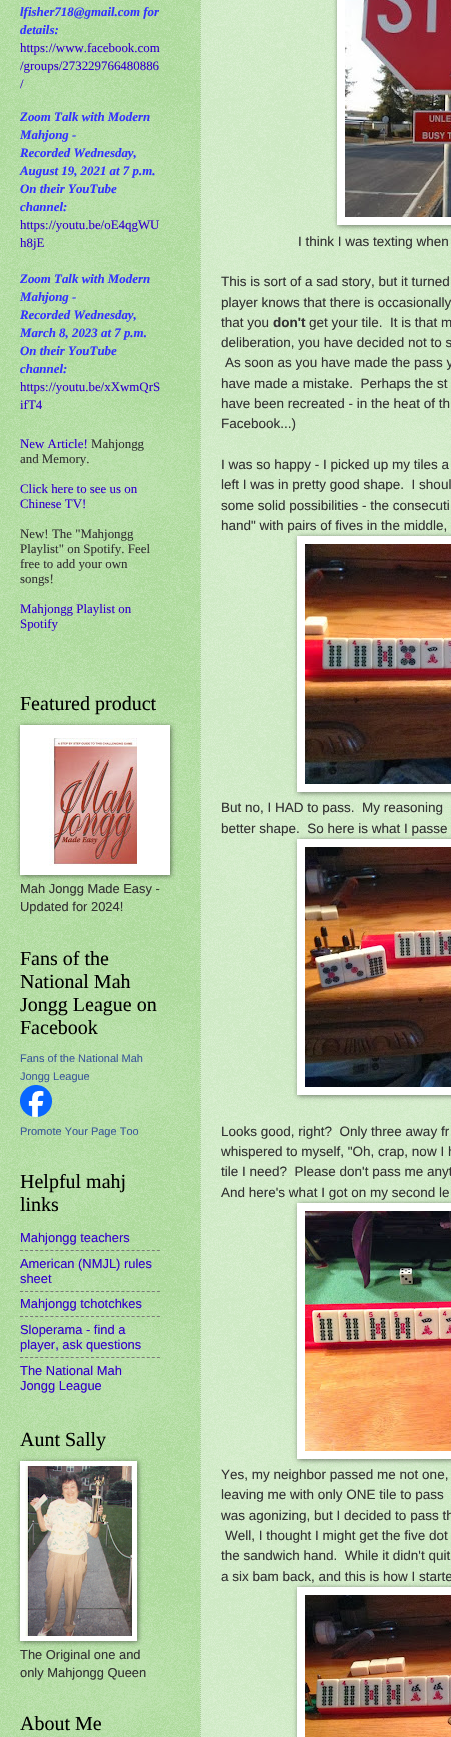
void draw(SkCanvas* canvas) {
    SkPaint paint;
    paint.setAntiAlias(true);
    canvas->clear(0xFF73C054);
    canvas->drawImageRect(SkImages::DeferredFromEncodedData(SkData::MakeFromFileName("img1.png")), SkRect::MakeXYWH(0, 0, 451, 1737), SkSamplingOptions());
    SkFont font1(fontMgr->matchFamilyStyle("Liberation Serif", SkFontStyle::BoldItalic()), 12.9f);
    font1.setSubpixel(true);
    paint.setColor(0xFF3333FF);
    canvas->drawString("lfisher718@gmail.com for", 20, 16, font1, paint);
    canvas->drawString("details:", 20, 34, font1, paint);
    SkFont font2(fontMgr->matchFamilyStyle("Liberation Serif", SkFontStyle::Normal()), 12.9f);
    font2.setSubpixel(true);
    paint.setColor(0xFF3300CC);
    canvas->drawString("https://www.facebook.com", 20, 52, font2, paint);
    canvas->drawString("/groups/273229766480886", 20, 70, font2, paint);
    canvas->drawString("/", 20, 88, font2, paint);
    paint.setColor(0xFF3333FF);
    canvas->drawString("Zoom Talk with Modern", 20, 121, font1, paint);
    canvas->drawString("Mahjong -", 20, 139, font1, paint);
    canvas->drawString("Recorded Wednesday,", 20, 157, font1, paint);
    canvas->drawString("August 19, 2021 at 7 p.m.", 20, 175, font1, paint);
    canvas->drawString("On their YouTube", 20, 193, font1, paint);
    canvas->drawString("channel:", 20, 211, font1, paint);
    paint.setColor(0xFF3300CC);
    canvas->drawString("https://youtu.be/oE4qgWU", 20, 229, font2, paint);
    canvas->drawString("h8jE", 20, 247, font2, paint);
    paint.setColor(0xFF3333FF);
    canvas->drawString("Zoom Talk with Modern", 20, 283, font1, paint);
    canvas->drawString("Mahjong -", 20, 301, font1, paint);
    canvas->drawString("Recorded Wednesday,", 20, 319, font1, paint);
    canvas->drawString("March 8, 2023 at 7 p.m.", 20, 337, font1, paint);
    canvas->drawString("On their YouTube", 20, 355, font1, paint);
    canvas->drawString("channel:", 20, 373, font1, paint);
    paint.setColor(0xFF3300CC);
    canvas->drawString("https://youtu.be/xXwmQrS", 20, 391, font2, paint);
    canvas->drawString("ifT4", 20, 409, font2, paint);
    canvas->drawString("New Article!", 20, 448, font2, paint);
    paint.setColor(0xFF333333);
    canvas->drawString("Mahjongg", 91, 448, font2, paint);
    canvas->drawString("and Memory.", 20, 463, font2, paint);
    paint.setColor(0xFF3300CC);
    canvas->drawString("Click here to see us on", 20, 493, font2, paint);
    canvas->drawString("Chinese TV!", 20, 508, font2, paint);
    paint.setColor(0xFF333333);
    canvas->drawString("New! The \"Mahjongg", 20, 538, font2, paint);
    canvas->drawString("Playlist\" on Spotify. Feel", 20, 553, font2, paint);
    canvas->drawString("free to add your own", 20, 568, font2, paint);
    canvas->drawString("songs!", 20, 583, font2, paint);
    paint.setColor(0xFF3300CC);
    canvas->drawString("Mahjongg Playlist on", 20, 613, font2, paint);
    canvas->drawString("Spotify", 20, 628, font2, paint);
    SkFont font3(fontMgr->matchFamilyStyle("Liberation Serif", SkFontStyle::Normal()), 20);
    font3.setSubpixel(true);
    paint.setColor(0xFF000000);
    canvas->drawString("Featured product", 20, 710, font3, paint);
    paint.setColor(0x80000000);
    paint.setMaskFilter(SkMaskFilter::MakeBlur(kNormal_SkBlurStyle, 2.5f));
    canvas->drawRect(SkRect::MakeXYWH(21, 726, 150, 150), paint);
    paint.setMaskFilter(nullptr);
    paint.setColor(0xFFFFFFFF);
    canvas->drawRect(SkRect::MakeXYWH(20, 725, 150, 150), paint);
    canvas->drawImageRect(SkImages::DeferredFromEncodedData(SkData::MakeFromFileName("img2.png")), SkRect::MakeXYWH(49, 738, 88, 128), SkSamplingOptions());
    SkFont font4(fontMgr->matchFamilyStyle("Liberation Sans", SkFontStyle::Normal()), 12.9f);
    font4.setSubpixel(true);
    paint.setColor(0xFF333333);
    canvas->drawString("Mah Jongg Made Easy -", 20, 893, font4, paint);
    canvas->drawString("Updated for 2024!", 20, 911, font4, paint);
    paint.setColor(0xFF000000);
    canvas->drawString("Fans of the", 20, 965, font3, paint);
    canvas->drawString("National Mah", 20, 988, font3, paint);
    canvas->drawString("Jongg League on", 20, 1011, font3, paint);
    canvas->drawString("Facebook", 20, 1034, font3, paint);
    SkFont font5(fontMgr->matchFamilyStyle("Liberation Sans", SkFontStyle::Normal()), 11);
    font5.setSubpixel(true);
    paint.setColor(0xFF3B5998);
    canvas->drawString("Fans of the National Mah", 20, 1062, font5, paint);
    canvas->drawString("Jongg League", 20, 1080, font5, paint);
    canvas->drawImageRect(SkImages::DeferredFromEncodedData(SkData::MakeFromFileName("img3.png")), SkRect::MakeXYWH(20, 1085, 32, 32), SkSamplingOptions());
    canvas->drawString("Promote Your Page Too", 20, 1135, font5, paint);
    paint.setColor(0xFF000000);
    canvas->drawString("Helpful mahj", 20, 1188, font3, paint);
    canvas->drawString("links", 20, 1211, font3, paint);
    paint.setColor(0xFF3300CC);
    canvas->drawString("Mahjongg teachers", 20, 1242, font4, paint);
    paint.setStyle(SkPaint::kStroke_Style);
    paint.setStrokeWidth(1);
    paint.setColor(0xFF777777);
    paint.setPathEffect(SkDashPathEffect::Make({{3, 2.07f}}, 0));
    canvas->drawPath(SkPathBuilder().moveTo(20, 1250.5f).lineTo(160, 1250.5f).detach(), paint);
    paint.setPathEffect(nullptr);
    paint.setStyle(SkPaint::kFill_Style);
    paint.setColor(0xFF3300CC);
    canvas->drawString("American (NMJL) rules", 20, 1268, font4, paint);
    canvas->drawString("sheet", 20, 1283, font4, paint);
    paint.setStyle(SkPaint::kStroke_Style);
    paint.setColor(0xFF777777);
    paint.setPathEffect(SkDashPathEffect::Make({{3, 2.07f}}, 0));
    canvas->drawPath(SkPathBuilder().moveTo(20, 1291.5f).lineTo(160, 1291.5f).detach(), paint);
    paint.setPathEffect(nullptr);
    paint.setStyle(SkPaint::kFill_Style);
    paint.setColor(0xFF3300CC);
    canvas->drawString("Mahjongg tchotchkes", 20, 1308, font4, paint);
    paint.setStyle(SkPaint::kStroke_Style);
    paint.setColor(0xFF777777);
    paint.setPathEffect(SkDashPathEffect::Make({{3, 2.07f}}, 0));
    canvas->drawPath(SkPathBuilder().moveTo(20, 1316.5f).lineTo(160, 1316.5f).detach(), paint);
    paint.setPathEffect(nullptr);
    paint.setStyle(SkPaint::kFill_Style);
    paint.setColor(0xFF3300CC);
    canvas->drawString("Sloperama - find a", 20, 1334, font4, paint);
    canvas->drawString("player, ask questions", 20, 1349, font4, paint);
    paint.setStyle(SkPaint::kStroke_Style);
    paint.setColor(0xFF777777);
    paint.setPathEffect(SkDashPathEffect::Make({{3, 2.07f}}, 0));
    canvas->drawPath(SkPathBuilder().moveTo(20, 1357.5f).lineTo(160, 1357.5f).detach(), paint);
    paint.setPathEffect(nullptr);
    paint.setStyle(SkPaint::kFill_Style);
    paint.setColor(0xFF3300CC);
    canvas->drawString("The National Mah", 20, 1375, font4, paint);
    canvas->drawString("Jongg League", 20, 1390, font4, paint);
    paint.setColor(0xFF000000);
    canvas->drawString("Aunt Sally", 20, 1446, font3, paint);
    paint.setColor(0x80000000);
    paint.setMaskFilter(SkMaskFilter::MakeBlur(kNormal_SkBlurStyle, 2.5f));
    canvas->drawRect(SkRect::MakeXYWH(21, 1462, 117, 180), paint);
    paint.setMaskFilter(nullptr);
    paint.setColor(0xFFFFFFFF);
    canvas->drawRect(SkRect::MakeXYWH(20, 1461, 117, 180), paint);
    canvas->drawImageRect(SkImages::DeferredFromEncodedData(SkData::MakeFromFileName("img4.png")), SkRect::MakeXYWH(25, 1466, 107, 170), SkSamplingOptions());
    paint.setColor(0xFF333333);
    canvas->drawString("The Original one and", 20, 1659, font4, paint);
    canvas->drawString("only Mahjongg Queen", 20, 1677, font4, paint);
    paint.setColor(0xFF000000);
    canvas->drawString("About Me", 20, 1730, font3, paint);
    paint.setColor(0x66FFFFFF);
    canvas->drawRect(SkRect::MakeXYWH(200, 0, 251, 1737), paint);
    paint.setStyle(SkPaint::kStroke_Style);
    paint.setColor(0xFFA9CC99);
    paint.setPathEffect(SkDashPathEffect::Make({{1, 1}}, 0));
    canvas->drawPath(SkPathBuilder().moveTo(200.5f, -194).lineTo(200.5f, 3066).detach(), paint);
    paint.setPathEffect(nullptr);
    paint.setStyle(SkPaint::kFill_Style);
    paint.setColor(0x80000000);
    paint.setMaskFilter(SkMaskFilter::MakeBlur(kNormal_SkBlurStyle, 2.5f));
    canvas->drawRect(SkRect::MakeXYWH(338, -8, 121, 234), paint);
    paint.setMaskFilter(nullptr);
    paint.setColor(0xFFFFFFFF);
    canvas->drawRect(SkRect::MakeXYWH(337, 0, 114, 225), paint);
    canvas->drawImageRect(SkImages::DeferredFromEncodedData(SkData::MakeFromFileName("img5.png")), SkRect::MakeXYWH(345, 0, 106, 217), SkSamplingOptions());
    SkFont font6(fontMgr->matchFamilyStyle("Liberation Sans", SkFontStyle::Normal()), 13.5f);
    font6.setSubpixel(true);
    paint.setColor(0xFF333333);
    canvas->drawString("I think I was texting when", 298, 246, font6, paint);
    canvas->drawString("This is sort of a sad story, but it turned", 221, 286, font6, paint);
    canvas->drawString("player knows that there is occasionally", 221, 307, font6, paint);
    canvas->drawString("that you", 221, 327, font6, paint);
    SkFont font7(fontMgr->matchFamilyStyle("Liberation Sans", SkFontStyle::Bold()), 13.5f);
    font7.setSubpixel(true);
    canvas->drawString("don't", 273, 327, font7, paint);
    canvas->drawString("get your tile.  It is that m", 309, 327, font6, paint);
    canvas->drawString("deliberation, you have decided not to s", 221, 347, font6, paint);
    canvas->drawString("As soon as you have made the pass y", 225, 367, font6, paint);
    canvas->drawString("have made a mistake.  Perhaps the st", 221, 388, font6, paint);
    canvas->drawString("have been recreated - in the heat of th", 221, 408, font6, paint);
    canvas->drawString("Facebook...)", 221, 428, font6, paint);
    canvas->drawString("I was so happy - I picked up my tiles a", 221, 469, font6, paint);
    canvas->drawString("left I was in pretty good shape.  I shoul", 221, 489, font6, paint);
    canvas->drawString("some solid possibilities - the consecuti", 221, 510, font6, paint);
    canvas->drawString("hand\" with pairs of fives in the middle,", 221, 530, font6, paint);
    paint.setColor(0x80000000);
    paint.setMaskFilter(SkMaskFilter::MakeBlur(kNormal_SkBlurStyle, 2.5f));
    canvas->drawRect(SkRect::MakeXYWH(298, 537, 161, 256), paint);
    paint.setMaskFilter(nullptr);
    paint.setColor(0xFFFFFFFF);
    canvas->drawRect(SkRect::MakeXYWH(297, 536, 154, 256), paint);
    canvas->drawImageRect(SkImages::DeferredFromEncodedData(SkData::MakeFromFileName("img6.png")), SkRect::MakeXYWH(305, 544, 146, 240), SkSamplingOptions());
    paint.setColor(0xFF333333);
    canvas->drawString("But no, I HAD to pass.  My reasoning", 221, 812, font6, paint);
    canvas->drawString("better shape.  So here is what I passe", 221, 833, font6, paint);
    paint.setColor(0x80000000);
    paint.setMaskFilter(SkMaskFilter::MakeBlur(kNormal_SkBlurStyle, 2.5f));
    canvas->drawRect(SkRect::MakeXYWH(298, 840, 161, 256), paint);
    paint.setMaskFilter(nullptr);
    paint.setColor(0xFFFFFFFF);
    canvas->drawRect(SkRect::MakeXYWH(297, 839, 154, 256), paint);
    canvas->drawImageRect(SkImages::DeferredFromEncodedData(SkData::MakeFromFileName("img7.png")), SkRect::MakeXYWH(305, 847, 146, 240), SkSamplingOptions());
    paint.setColor(0xFF333333);
    canvas->drawString("Looks good, right?  Only three away fr", 221, 1136, font6, paint);
    canvas->drawString("whispered to myself, \"Oh, crap, now I h", 221, 1156, font6, paint);
    canvas->drawString("tile I need?  Please don't pass me anyt", 221, 1176, font6, paint);
    canvas->drawString("And here's what I got on my second le", 221, 1197, font6, paint);
    paint.setColor(0x80000000);
    paint.setMaskFilter(SkMaskFilter::MakeBlur(kNormal_SkBlurStyle, 2.5f));
    canvas->drawRect(SkRect::MakeXYWH(298, 1204, 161, 256), paint);
    paint.setMaskFilter(nullptr);
    paint.setColor(0xFFFFFFFF);
    canvas->drawRect(SkRect::MakeXYWH(297, 1203, 154, 256), paint);
    canvas->drawImageRect(SkImages::DeferredFromEncodedData(SkData::MakeFromFileName("img8.png")), SkRect::MakeXYWH(305, 1211, 146, 240), SkSamplingOptions());
    paint.setColor(0xFF333333);
    canvas->drawString("Yes, my neighbor passed me not one,", 221, 1479, font6, paint);
    canvas->drawString("leaving me with only ONE tile to pass", 221, 1499, font6, paint);
    canvas->drawString("was agonizing, but I decided to pass th", 221, 1520, font6, paint);
    canvas->drawString("Well, I thought I might get the five dot", 225, 1540, font6, paint);
    canvas->drawString("the sandwich hand.  While it didn't quit", 221, 1560, font6, paint);
    canvas->drawString("a six bam back, and this is how I starte", 221, 1581, font6, paint);
    paint.setColor(0x80000000);
    paint.setMaskFilter(SkMaskFilter::MakeBlur(kNormal_SkBlurStyle, 2.5f));
    canvas->drawRect(SkRect::MakeXYWH(298, 1588, 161, 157), paint);
    paint.setMaskFilter(nullptr);
    paint.setColor(0xFFFFFFFF);
    canvas->drawRect(SkRect::MakeXYWH(297, 1587, 154, 150), paint);
    canvas->drawImageRect(SkImages::DeferredFromEncodedData(SkData::MakeFromFileName("img9.png")), SkRect::MakeXYWH(305, 1595, 146, 142), SkSamplingOptions());
}
